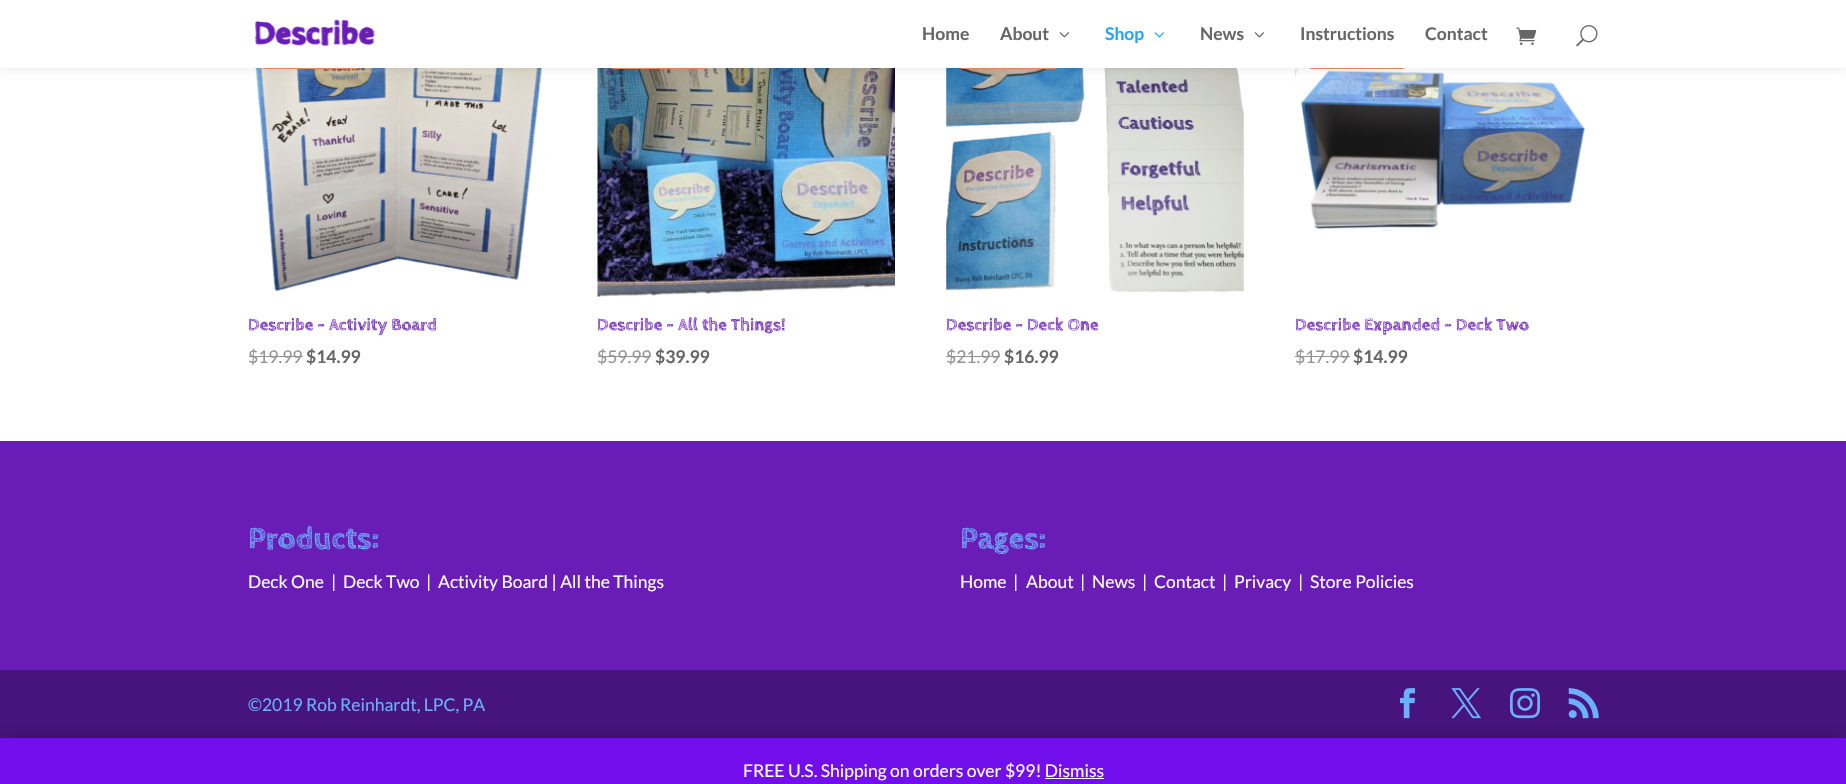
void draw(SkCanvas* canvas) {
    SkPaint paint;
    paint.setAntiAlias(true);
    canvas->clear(0xFFFFFFFF);
    canvas->drawImageRect(SkImages::DeferredFromEncodedData(SkData::MakeFromFileName("img6.png")), SkRect::MakeXYWH(251, 68, 295, 224), SkSamplingOptions());
    paint.setColor(0xFFEF8F61);
    canvas->drawRoundRect(SkRect::MakeXYWH(261, 11, 99, 58), 4, 4, paint);
    canvas->drawImageRect(SkImages::DeferredFromEncodedData(SkData::MakeFromFileName("img7.png")), SkRect::MakeXYWH(597, 68, 298, 229), SkSamplingOptions());
    canvas->drawRoundRect(SkRect::MakeXYWH(610, 11, 99, 58), 4, 4, paint);
    canvas->drawImageRect(SkImages::DeferredFromEncodedData(SkData::MakeFromFileName("img8.png")), SkRect::MakeXYWH(946, 68, 298, 227), SkSamplingOptions());
    canvas->drawRoundRect(SkRect::MakeXYWH(959, 11, 99, 58), 4, 4, paint);
    canvas->drawImageRect(SkImages::DeferredFromEncodedData(SkData::MakeFromFileName("img9.png")), SkRect::MakeXYWH(1295, 68, 290, 163), SkSamplingOptions());
    canvas->drawRoundRect(SkRect::MakeXYWH(1308, 11, 98, 58), 4, 4, paint);
    paint.setColor(0x1A000000);
    paint.setMaskFilter(SkMaskFilter::MakeBlur(kNormal_SkBlurStyle, 4.5f));
    canvas->drawRect(SkRect::MakeXYWH(0, 0, 1846, 68), paint);
    paint.setMaskFilter(nullptr);
    paint.setColor(0xFFFFFFFF);
    canvas->drawRect(SkRect::MakeXYWH(0, 0, 1846, 68), paint);
    canvas->drawImageRect(SkImages::DeferredFromEncodedData(SkData::MakeFromFileName("img1.png")), SkRect::MakeXYWH(254, 19, 122, 28), SkSamplingOptions());
    SkFont font1(fontMgr->matchFamilyStyle("Lato", SkFontStyle::Bold()), 17.5f);
    font1.setSubpixel(true);
    paint.setColor(0xFF666666);
    canvas->drawString("Home", 922, 40, font1, paint);
    canvas->drawString("About", 1000, 40, font1, paint);
    canvas->drawImageRect(SkImages::DeferredFromEncodedData(SkData::MakeFromFileName("img2.png")), SkRect::MakeXYWH(1059, 32, 10, 6), SkSamplingOptions());
    paint.setColor(0xFF2EA3F2);
    canvas->drawString("Shop", 1105, 40, font1, paint);
    canvas->drawImageRect(SkImages::DeferredFromEncodedData(SkData::MakeFromFileName("img3.png")), SkRect::MakeXYWH(1154, 32, 10, 6), SkSamplingOptions());
    paint.setColor(0xFF666666);
    canvas->drawString("News", 1200, 40, font1, paint);
    canvas->drawImageRect(SkImages::DeferredFromEncodedData(SkData::MakeFromFileName("img2.png")), SkRect::MakeXYWH(1254, 32, 10, 6), SkSamplingOptions());
    canvas->drawString("Instructions", 1300, 40, font1, paint);
    canvas->drawString("Contact", 1425, 40, font1, paint);
    canvas->drawImageRect(SkImages::DeferredFromEncodedData(SkData::MakeFromFileName("img4.png")), SkRect::MakeXYWH(1516, 27, 21, 18), SkSamplingOptions());
    canvas->drawImageRect(SkImages::DeferredFromEncodedData(SkData::MakeFromFileName("img5.png")), SkRect::MakeXYWH(1576, 25, 22, 22), SkSamplingOptions());
    SkFont font2(fontMgr->matchFamilyStyle("Cabin Sketch", SkFontStyle::Bold()), 17.5f);
    font2.setSubpixel(true);
    paint.setColor(0xFF691CB6);
    canvas->drawString("Describe – Activity Board", 248, 330, font2, paint);
    SkFont font3(fontMgr->matchFamilyStyle("Lato", SkFontStyle::Normal()), 17.5f);
    font3.setSubpixel(true);
    paint.setColor(0xFF949494);
    canvas->drawString("$19.99", 248, 363, font3, paint);
    canvas->drawRect(SkRect::MakeXYWH(249, 356, 54, 1), paint);
    paint.setColor(0xFF666666);
    canvas->drawString("$14.99", 306, 363, font1, paint);
    paint.setColor(0xFF691CB6);
    canvas->drawString("Describe – All the Things!", 597, 330, font2, paint);
    paint.setColor(0xFF949494);
    canvas->drawString("$59.99", 597, 363, font3, paint);
    canvas->drawRect(SkRect::MakeXYWH(598, 356, 53, 1), paint);
    paint.setColor(0xFF666666);
    canvas->drawString("$39.99", 655, 363, font1, paint);
    paint.setColor(0xFF691CB6);
    canvas->drawString("Describe – Deck One", 946, 330, font2, paint);
    paint.setColor(0xFF949494);
    canvas->drawString("$21.99", 946, 363, font3, paint);
    canvas->drawRect(SkRect::MakeXYWH(946, 356, 54, 1), paint);
    paint.setColor(0xFF666666);
    canvas->drawString("$16.99", 1004, 363, font1, paint);
    paint.setColor(0xFF691CB6);
    canvas->drawString("Describe Expanded – Deck Two", 1295, 330, font2, paint);
    paint.setColor(0xFF949494);
    canvas->drawString("$17.99", 1295, 363, font3, paint);
    canvas->drawRect(SkRect::MakeXYWH(1295, 356, 55, 1), paint);
    paint.setColor(0xFF666666);
    canvas->drawString("$14.99", 1353, 363, font1, paint);
    paint.setColor(0xFF691CB6);
    canvas->drawRect(SkRect::MakeXYWH(0, 441, 1846, 229), paint);
    SkFont font4(fontMgr->matchFamilyStyle("Cabin Sketch", SkFontStyle::Bold()), 31.25f);
    font4.setSubpixel(true);
    paint.setColor(0xFF6BB0FC);
    canvas->drawString("Products:", 248, 548, font4, paint);
    paint.setColor(0xFFFFFFFF);
    canvas->drawString("Deck One", 248, 588, font3, paint);
    canvas->drawString("|", 331, 588, font3, paint);
    canvas->drawString("Deck Two", 343, 588, font3, paint);
    canvas->drawString("|", 426, 588, font3, paint);
    canvas->drawString("Activity Board | All the Things", 438, 588, font3, paint);
    paint.setColor(0xFF6BB0FC);
    canvas->drawString("Pages:", 960, 548, font4, paint);
    paint.setColor(0xFFFFFFFF);
    canvas->drawString("Home", 960, 588, font3, paint);
    canvas->drawString("|", 1013, 588, font3, paint);
    canvas->drawString("About", 1026, 588, font3, paint);
    canvas->drawString("|", 1080, 588, font3, paint);
    canvas->drawString("News", 1092, 588, font3, paint);
    canvas->drawString("|", 1142, 588, font3, paint);
    canvas->drawString("Contact", 1154, 588, font3, paint);
    canvas->drawString("|", 1222, 588, font3, paint);
    canvas->drawString("Privacy", 1234, 588, font3, paint);
    canvas->drawString("|", 1298, 588, font3, paint);
    canvas->drawString("Store Policies", 1310, 588, font3, paint);
    paint.setColor(0xFF47137C);
    canvas->drawRect(SkRect::MakeXYWH(0, 670, 1846, 68), paint);
    paint.setColor(0xFF6BB0FC);
    canvas->drawString("©2019 Rob Reinhardt, LPC, PA", 248, 711, font3, paint);
    canvas->drawImageRect(SkImages::DeferredFromEncodedData(SkData::MakeFromFileName("img10.png")), SkRect::MakeXYWH(1400, 688, 16, 31), SkSamplingOptions());
    canvas->drawImageRect(SkImages::DeferredFromEncodedData(SkData::MakeFromFileName("img11.png")), SkRect::MakeXYWH(1451, 688, 30, 31), SkSamplingOptions());
    canvas->drawImageRect(SkImages::DeferredFromEncodedData(SkData::MakeFromFileName("img12.png")), SkRect::MakeXYWH(1510, 688, 30, 31), SkSamplingOptions());
    canvas->drawImageRect(SkImages::DeferredFromEncodedData(SkData::MakeFromFileName("img13.png")), SkRect::MakeXYWH(1568, 688, 31, 31), SkSamplingOptions());
    paint.setColor(0x33000000);
    paint.setMaskFilter(SkMaskFilter::MakeBlur(kNormal_SkBlurStyle, 9));
    canvas->drawRect(SkRect::MakeXYWH(0, 739, 1846, 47), paint);
    paint.setMaskFilter(nullptr);
    paint.setColor(0xFF720EEC);
    canvas->drawRect(SkRect::MakeXYWH(0, 738, 1846, 46), paint);
    paint.setColor(0xFFFFFFFF);
    canvas->drawString("FREE U.S. Shipping on orders over $99! Dismiss", 743, 777, font3, paint);
    paint.setColor(0xFFFCFBFE);
    canvas->drawRect(SkRect::MakeXYWH(1045, 778, 59, 1), paint);
}
